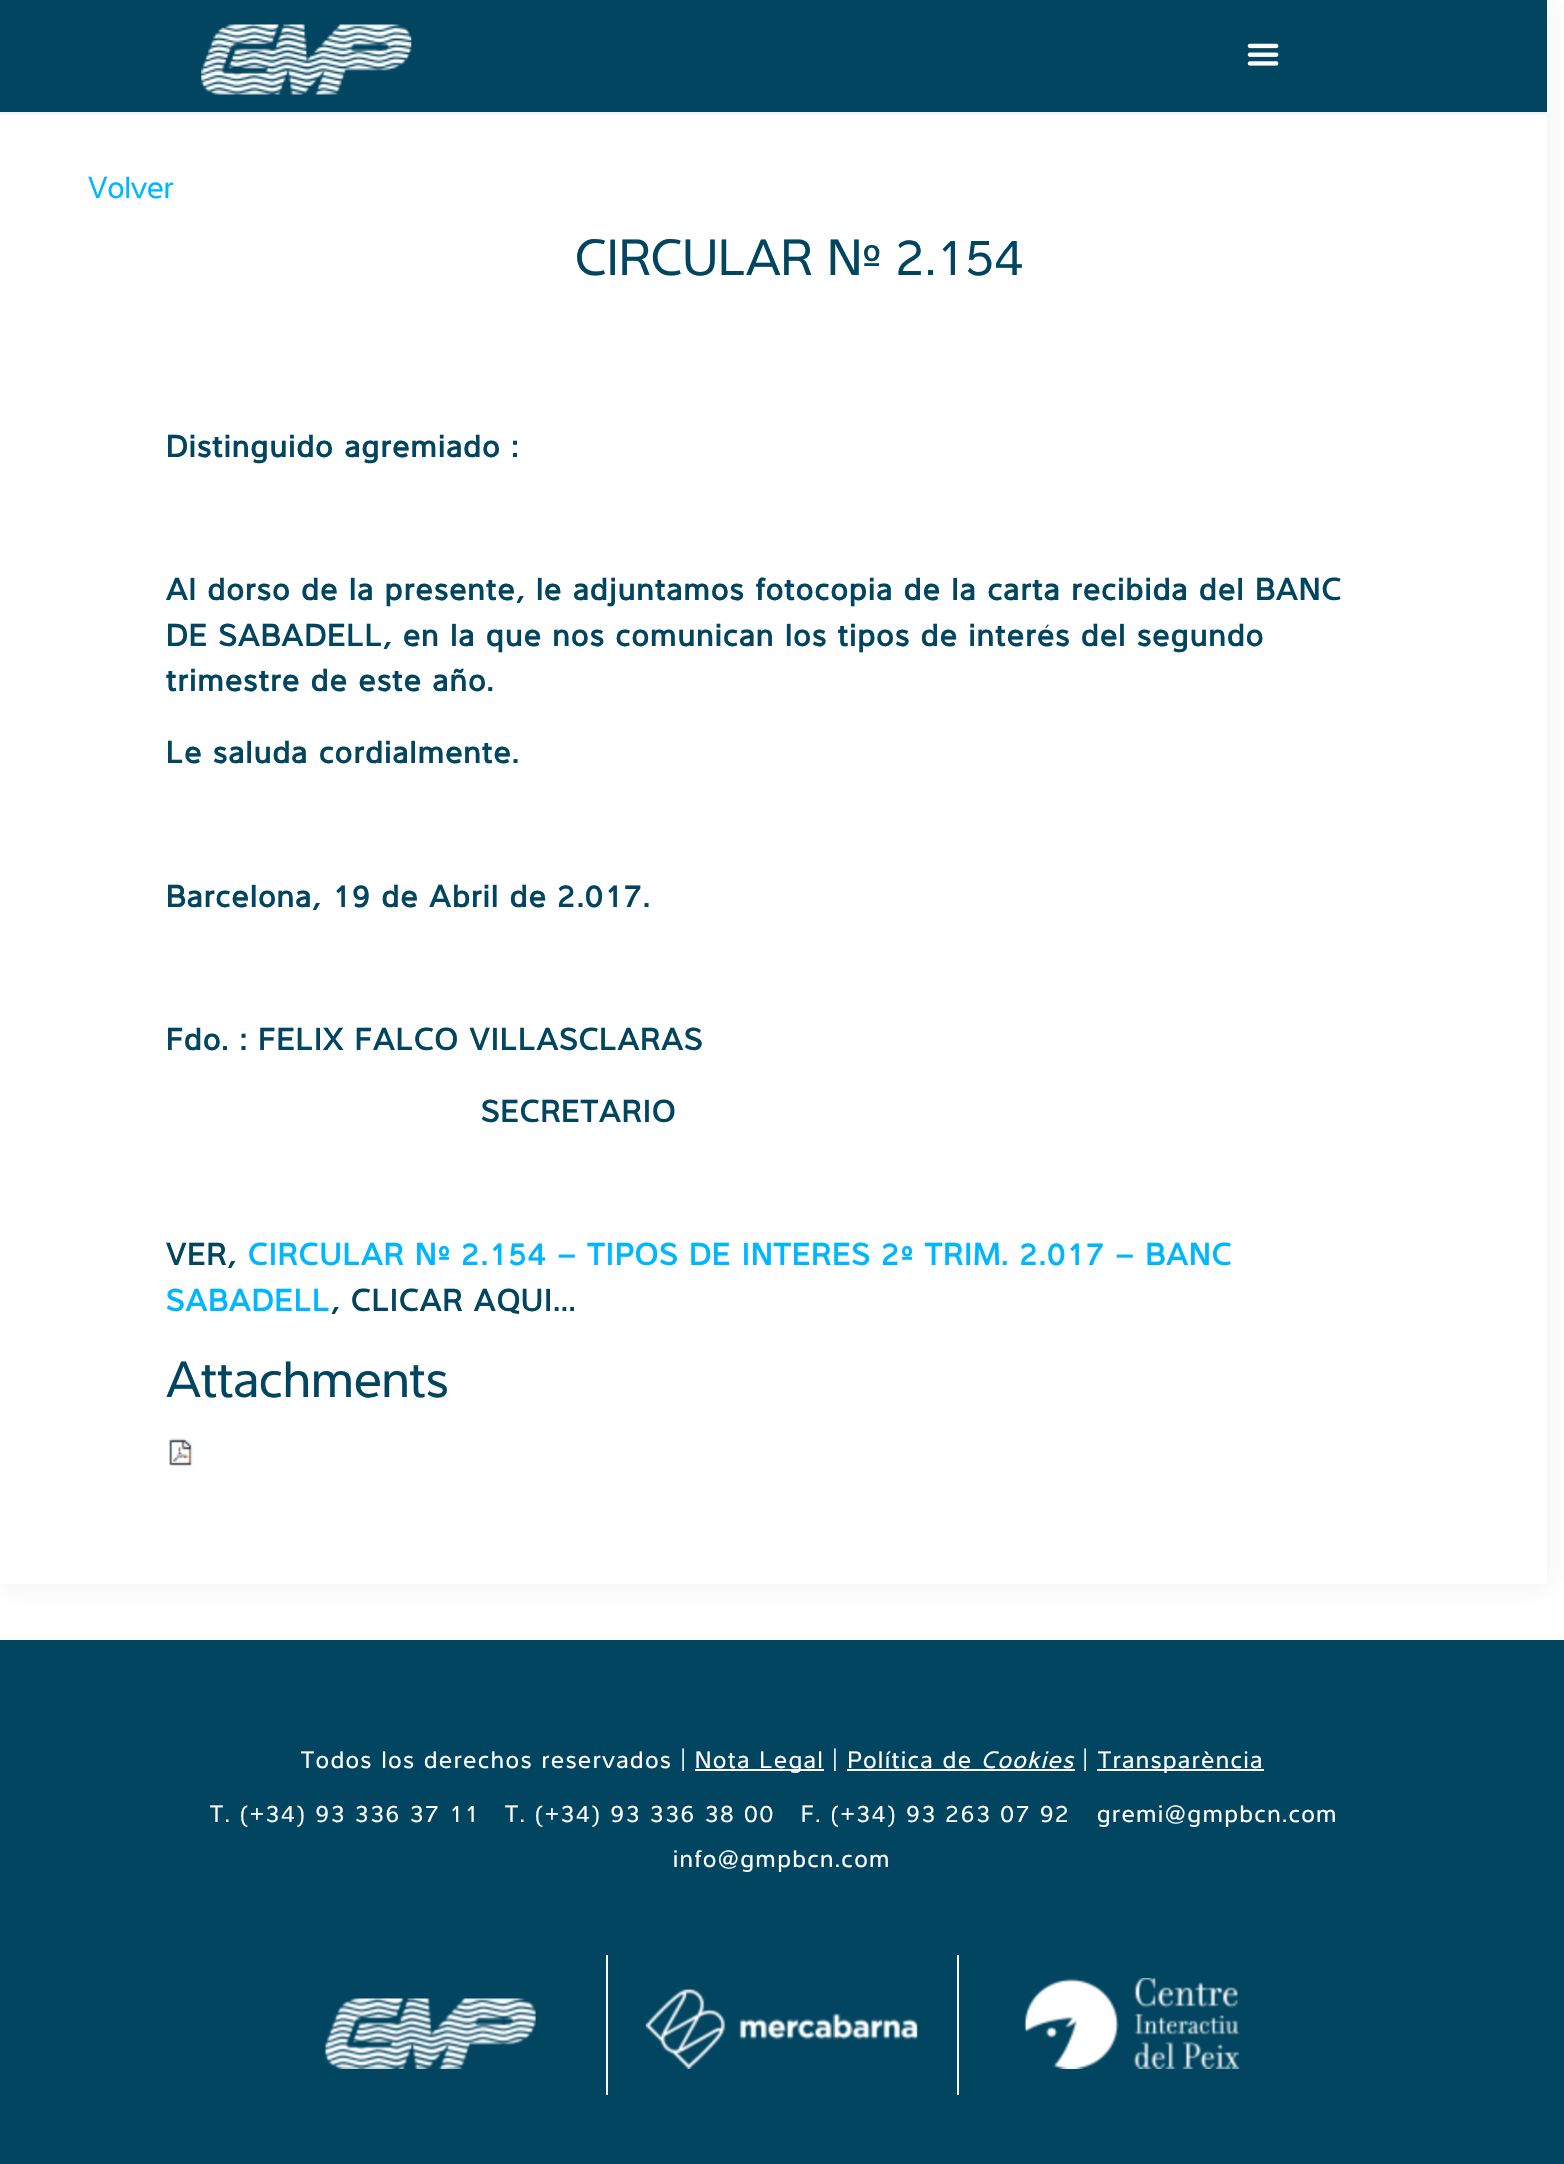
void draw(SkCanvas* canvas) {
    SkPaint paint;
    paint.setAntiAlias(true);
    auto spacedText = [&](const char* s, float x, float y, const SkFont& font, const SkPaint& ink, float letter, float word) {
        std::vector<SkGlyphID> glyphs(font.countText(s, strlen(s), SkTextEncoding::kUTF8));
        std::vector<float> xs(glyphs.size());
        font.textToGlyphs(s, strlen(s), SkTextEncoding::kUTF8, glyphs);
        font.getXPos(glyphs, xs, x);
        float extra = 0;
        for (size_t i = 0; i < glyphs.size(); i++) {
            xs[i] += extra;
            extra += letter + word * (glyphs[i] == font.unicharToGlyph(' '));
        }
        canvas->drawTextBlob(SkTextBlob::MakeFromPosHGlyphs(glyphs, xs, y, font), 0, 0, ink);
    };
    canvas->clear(0xFFFFFFFF);
    paint.setColor(0x0F000000);
    paint.setMaskFilter(SkMaskFilter::MakeBlur(kNormal_SkBlurStyle, 13));
    canvas->drawRect(SkRect::MakeXYWH(0, 0, 1547, 1584), paint);
    paint.setMaskFilter(nullptr);
    paint.setColor(0xFFFFFFFF);
    canvas->drawRect(SkRect::MakeXYWH(0, 112, 1547, 1472), paint);
    paint.setColor(0xFF014560);
    canvas->drawRect(SkRect::MakeXYWH(0, 0, 1547, 112), paint);
    canvas->drawImageRect(SkImages::DeferredFromEncodedData(SkData::MakeFromFileName("img1.png")), SkRect::MakeXYWH(201, 24, 211, 71), SkSamplingOptions());
    canvas->drawImageRect(SkImages::DeferredFromEncodedData(SkData::MakeFromFileName("img2.png")), SkRect::MakeXYWH(1247, 43, 32, 23), SkSamplingOptions());
    canvas->drawImageRect(SkImages::DeferredFromEncodedData(SkData::MakeFromFileName("img3.png")), SkRect::MakeXYWH(0, 112, 1547, 3), SkSamplingOptions());
    SkFont font1(fontMgr->matchFamilyStyle("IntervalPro", SkFontStyle::Normal()), 31.5f);
    font1.setSubpixel(true);
    paint.setColor(0xFF00B6FE);
    canvas->drawString("Volver", 88, 198, font1, paint);
    SkFont font2(fontMgr->matchFamilyStyle("IntervalPro", SkFontStyle::Normal()), 52.5f);
    font2.setSubpixel(true);
    paint.setColor(0xFF014560);
    canvas->drawString("CIRCULAR Nº 2.154", 575, 275, font2, paint);
    SkFont font3(fontMgr->matchFamilyStyle("IntervalPro", SkFontStyle::Bold()), 31.5f);
    font3.setSubpixel(true);
    spacedText("Distinguido agremiado :", 166, 457, font3, paint, 1.75f, 0);
    spacedText("Al dorso de la presente, le adjuntamos fotocopia de la carta recibida del BANC", 166, 600, font3, paint, 1.75f, 0);
    spacedText("DE SABADELL, en la que nos comunican los tipos de interés del segundo", 166, 646, font3, paint, 1.75f, 0);
    spacedText("trimestre de este año.", 166, 691, font3, paint, 1.75f, 0);
    spacedText("Le saluda cordialmente.", 166, 763, font3, paint, 1.75f, 0);
    spacedText("Barcelona, 19 de Abril de 2.017.", 166, 907, font3, paint, 1.75f, 0);
    spacedText("Fdo. : FELIX FALCO VILLASCLARAS", 166, 1050, font3, paint, 1.75f, 0);
    spacedText("SECRETARIO", 481, 1122, font3, paint, 1.75f, 0);
    spacedText("VER,", 166, 1265, font3, paint, 1.75f, 0);
    paint.setColor(0xFF00B6FE);
    spacedText("CIRCULAR Nº 2.154 – TIPOS DE INTERES 2º TRIM. 2.017 – BANC", 248, 1265, font3, paint, 1.75f, 0);
    spacedText("SABADELL", 166, 1311, font3, paint, 1.75f, 0);
    paint.setColor(0xFF014560);
    spacedText(", CLICAR AQUI…", 331, 1311, font3, paint, 1.75f, 0);
    canvas->drawString("Attachments", 166, 1397, font2, paint);
    canvas->drawImageRect(SkImages::DeferredFromEncodedData(SkData::MakeFromFileName("img4.png")), SkRect::MakeXYWH(169, 1438, 24, 29), SkSamplingOptions());
    canvas->drawRect(SkRect::MakeXYWH(0, 1640, 1564, 524), paint);
    SkFont font4(fontMgr->matchFamilyStyle("IntervalPro", SkFontStyle::Normal()), 24.5f);
    font4.setSubpixel(true);
    paint.setColor(0xFFFFFFFF);
    spacedText("Todos los derechos reservados |", 301, 1768, font4, paint, 1.75f, 0);
    canvas->drawRect(SkRect::MakeXYWH(695, 1769, 129, 2), paint);
    spacedText("Nota Legal | Política de", 695, 1768, font4, paint, 1.75f, 0);
    SkFont font5(fontMgr->matchFamilyStyle("IntervalPro", SkFontStyle::Italic()), 24.5f);
    font5.setSubpixel(true);
    spacedText("Cookies", 981, 1768, font5, paint, 1.75f, 0);
    canvas->drawRect(SkRect::MakeXYWH(847, 1769, 228, 2), paint);
    spacedText("|", 1083, 1768, font4, paint, 1.75f, 0);
    canvas->drawRect(SkRect::MakeXYWH(1097, 1769, 167, 2), paint);
    spacedText("Transparència", 1098, 1768, font4, paint, 1.75f, 0);
    spacedText("T. (+34) 93 336 37 11", 210, 1822, font4, paint, 1.75f, 0);
    spacedText("T. (+34) 93 336 38 00", 505, 1822, font4, paint, 1.75f, 0);
    spacedText("F. (+34) 93 263 07 92", 801, 1822, font4, paint, 1.75f, 0);
    spacedText("gremi@gmpbcn.com", 1097, 1822, font4, paint, 1.75f, 0);
    spacedText("info@gmpbcn.com", 673, 1867, font4, paint, 1.75f, 0);
    canvas->drawImageRect(SkImages::DeferredFromEncodedData(SkData::MakeFromFileName("img5.png")), SkRect::MakeXYWH(324, 1998, 212, 71), SkSamplingOptions());
    canvas->drawRect(SkRect::MakeXYWH(957, 1955, 2, 140), paint);
    canvas->drawRect(SkRect::MakeXYWH(606, 1955, 2, 140), paint);
    canvas->drawImageRect(SkImages::DeferredFromEncodedData(SkData::MakeFromFileName("img6.png")), SkRect::MakeXYWH(645, 1989, 273, 80), SkSamplingOptions());
    canvas->drawImageRect(SkImages::DeferredFromEncodedData(SkData::MakeFromFileName("img7.png")), SkRect::MakeXYWH(1024, 1978, 216, 91), SkSamplingOptions());
}
